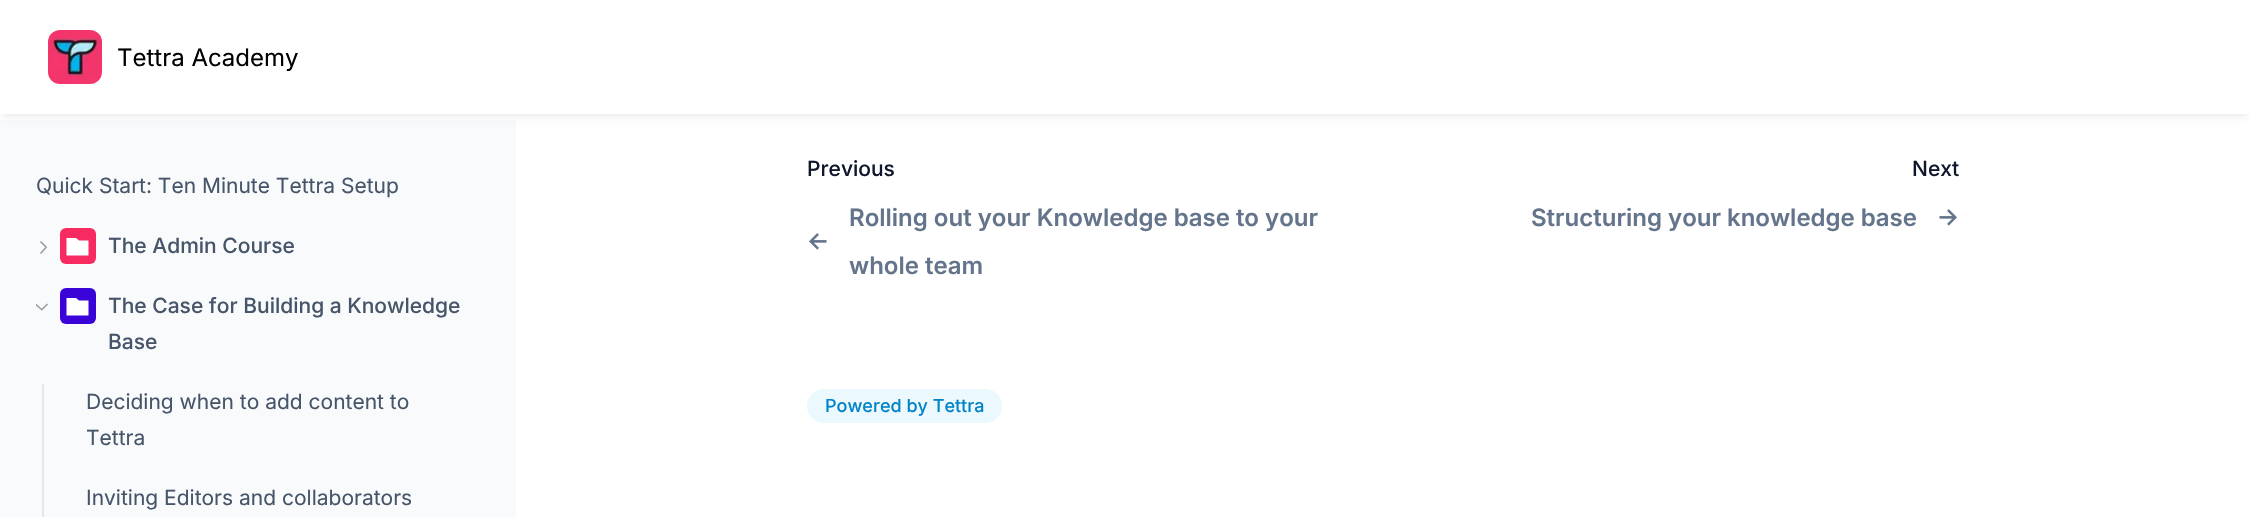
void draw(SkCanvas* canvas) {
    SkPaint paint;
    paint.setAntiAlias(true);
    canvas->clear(0xFFFFFFFF);
    paint.setColor(0xFFF8FAFC);
    canvas->drawRect(SkRect::MakeXYWH(0, 120, 516, 397), paint);
    paint.setColor(0x0D0F172A);
    paint.setMaskFilter(SkMaskFilter::MakeBlur(kNormal_SkBlurStyle, 3));
    canvas->drawRect(SkRect::MakeXYWH(3, 6, 2244, 108), paint);
    paint.setMaskFilter(nullptr);
    paint.setMaskFilter(SkMaskFilter::MakeBlur(kNormal_SkBlurStyle, 4.5f));
    canvas->drawRect(SkRect::MakeXYWH(2, 8, 2247, 111), paint);
    paint.setMaskFilter(nullptr);
    paint.setColor(0xFFFFFFFF);
    canvas->drawRect(SkRect::MakeXYWH(0, 2, 2250, 112), paint);
    canvas->drawImageRect(SkImages::DeferredFromEncodedData(SkData::MakeFromFileName("img1.png")), SkRect::MakeXYWH(48, 30, 54, 54), SkSamplingOptions());
    SkFont font1(fontMgr->matchFamilyStyle("Inter", SkFontStyle::Normal()), 24);
    font1.setSubpixel(true);
    paint.setColor(0xFF000000);
    canvas->drawString("Tettra Academy", 117, 66, font1, paint);
    SkFont font2(fontMgr->matchFamilyStyle("Inter", SkFontStyle::Normal()), 21);
    font2.setSubpixel(true);
    paint.setColor(0xFF475569);
    canvas->drawString("Quick Start: Ten Minute Tettra Setup", 36, 193, font2, paint);
    paint.setStyle(SkPaint::kStroke_Style);
    paint.setStrokeWidth(1.5f);
    paint.setStrokeCap(SkPaint::kSquare_Cap);
    paint.setColor(0xFF999999);
    canvas->drawPath(SkPathBuilder().moveTo(41, 253).lineTo(46, 247.5f).moveTo(41, 242).lineTo(46, 247).detach(), paint);
    paint.setStyle(SkPaint::kFill_Style);
    paint.setColor(0xFFF82B60);
    canvas->drawRoundRect(SkRect::MakeXYWH(60, 228, 36, 36), 6, 6, paint);
    paint.setColor(0xFFFFFFFF);
    canvas->drawPath(SkPathBuilder().moveTo(76, 238).lineTo(79, 240.5f).lineTo(88.5f, 240.5f).lineTo(88.5f, 255.5f).lineTo(66.5f, 255.5f).lineTo(66.5f, 238).close().detach(), paint);
    SkFont font3(fontMgr->matchFamilyStyle("Inter", SkFontStyle(500, SkFontStyle::kNormal_Width, SkFontStyle::kUpright_Slant)), 21);
    font3.setSubpixel(true);
    paint.setColor(0xFF475569);
    canvas->drawString("The Admin Course", 108, 253, font3, paint);
    canvas->save();
    canvas->clipPath(SkPathBuilder().moveTo(51, 302.5f).lineTo(51, 317.5f).lineTo(36, 317.5f).lineTo(36, 302.5f).close().detach(), true);
    paint.setStyle(SkPaint::kStroke_Style);
    paint.setColor(0xFF999999);
    canvas->drawPath(SkPathBuilder().moveTo(36, 304.5f).lineTo(41.5f, 309.5f).moveTo(47, 304.5f).lineTo(42, 309.5f).detach(), paint);
    canvas->restore();
    paint.setStyle(SkPaint::kFill_Style);
    paint.setColor(0xFF3A03D8);
    canvas->drawRoundRect(SkRect::MakeXYWH(60, 288, 36, 36), 6, 6, paint);
    paint.setColor(0xFFFFFFFF);
    canvas->drawPath(SkPathBuilder().moveTo(76, 298).lineTo(79, 300.5f).lineTo(88.5f, 300.5f).lineTo(88.5f, 315.5f).lineTo(66.5f, 315.5f).lineTo(66.5f, 298).close().detach(), paint);
    paint.setColor(0xFF475569);
    canvas->drawString("The Case for Building a Knowledge", 108, 313, font3, paint);
    canvas->drawString("Base", 108, 349, font3, paint);
    paint.setColor(0xFFE5E7EB);
    canvas->drawRect(SkRect::MakeXYWH(42, 384, 2, 133), paint);
    paint.setColor(0xFF475569);
    canvas->drawString("Deciding when to add content to", 86, 409, font2, paint);
    canvas->drawString("Tettra", 86, 445, font2, paint);
    canvas->drawString("Inviting Editors and collaborators", 86, 505, font2, paint);
    paint.setColor(0xFF0F172A);
    canvas->drawString("Previous", 807, 176, font3, paint);
    canvas->drawImageRect(SkImages::DeferredFromEncodedData(SkData::MakeFromFileName("img2.png")), SkRect::MakeXYWH(809, 233, 18, 17), SkSamplingOptions());
    SkFont font4(fontMgr->matchFamilyStyle("Inter", SkFontStyle(600, SkFontStyle::kNormal_Width, SkFontStyle::kUpright_Slant)), 24);
    font4.setSubpixel(true);
    paint.setColor(0xFF64748B);
    canvas->drawString("Rolling out your Knowledge base to your", 849, 226, font4, paint);
    canvas->drawString("whole team", 849, 274, font4, paint);
    paint.setColor(0xFF0F172A);
    canvas->drawString("Next", 1912, 176, font3, paint);
    paint.setColor(0xFF64748B);
    canvas->drawString("Structuring your knowledge base", 1531, 226, font4, paint);
    canvas->drawImageRect(SkImages::DeferredFromEncodedData(SkData::MakeFromFileName("img3.png")), SkRect::MakeXYWH(1939, 209, 18, 17), SkSamplingOptions());
    paint.setColor(0xFFEBF8FE);
    canvas->drawRoundRect(SkRect::MakeXYWH(807, 389, 195, 34), 17, 17, paint);
    SkFont font5(fontMgr->matchFamilyStyle("Inter", SkFontStyle(500, SkFontStyle::kNormal_Width, SkFontStyle::kUpright_Slant)), 18);
    font5.setSubpixel(true);
    paint.setColor(0xFF0284C7);
    canvas->drawString("Powered by Tettra", 825, 412, font5, paint);
}
